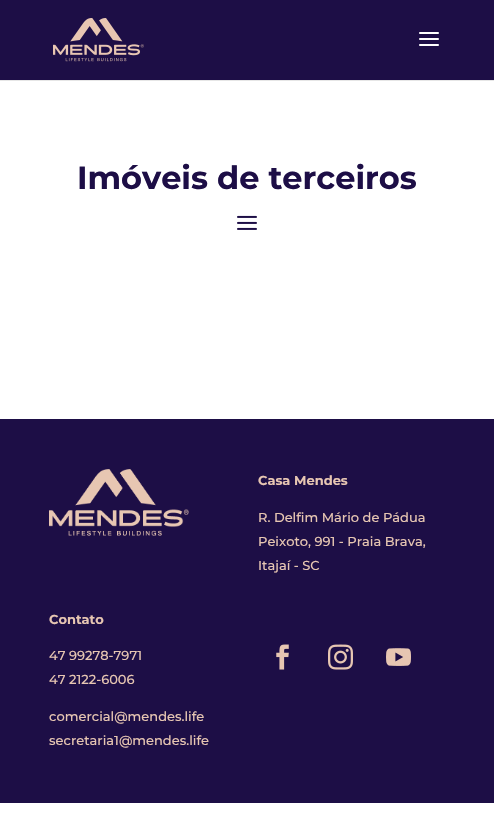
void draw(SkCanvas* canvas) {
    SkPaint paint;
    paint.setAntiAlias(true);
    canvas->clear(0xFFFFFFFF);
    paint.setColor(0xFFE6E6E6);
    canvas->drawRect(SkRect::MakeXYWH(0, 80, 494, 1), paint);
    paint.setColor(0xFF1D0E46);
    canvas->drawRect(SkRect::MakeXYWH(0, 0, 494, 80), paint);
    canvas->drawImageRect(SkImages::DeferredFromEncodedData(SkData::MakeFromFileName("img1.png")), SkRect::MakeXYWH(53, 18, 91, 44), SkSamplingOptions());
    canvas->drawImageRect(SkImages::DeferredFromEncodedData(SkData::MakeFromFileName("img2.png")), SkRect::MakeXYWH(419, 32, 20, 14), SkSamplingOptions());
    SkFont font1(fontMgr->matchFamilyStyle("Montserrat", SkFontStyle::Bold()), 32);
    font1.setSubpixel(true);
    canvas->drawString("Imóveis de terceiros", 77, 189, font1, paint);
    canvas->drawImageRect(SkImages::DeferredFromEncodedData(SkData::MakeFromFileName("img3.png")), SkRect::MakeXYWH(237, 215, 20, 15), SkSamplingOptions());
    canvas->drawRect(SkRect::MakeXYWH(0, 419, 494, 384), paint);
    canvas->drawImageRect(SkImages::DeferredFromEncodedData(SkData::MakeFromFileName("img4.png")), SkRect::MakeXYWH(49, 469, 140, 67), SkSamplingOptions());
    SkFont font2(fontMgr->matchFamilyStyle("Montserrat", SkFontStyle::Bold()), 13);
    font2.setSubpixel(true);
    paint.setColor(0xFFE7C6B2);
    canvas->drawString("Casa Mendes", 258, 485, font2, paint);
    SkFont font3(fontMgr->matchFamilyStyle("Montserrat", SkFontStyle(500, SkFontStyle::kNormal_Width, SkFontStyle::kUpright_Slant)), 13);
    font3.setSubpixel(true);
    canvas->drawString("R. Delfim Mário de Pádua", 258, 522, font3, paint);
    canvas->drawString("Peixoto, 991 - Praia Brava,", 258, 546, font3, paint);
    canvas->drawString("Itajaí - SC", 258, 570, font3, paint);
    canvas->drawString("Contato", 49, 624, font2, paint);
    canvas->drawString("47 99278-7971", 49, 660, font3, paint);
    canvas->drawString("47 2122-6006", 49, 684, font3, paint);
    canvas->drawString("comercial@mendes.life", 49, 721, font3, paint);
    canvas->drawString("secretaria1@mendes.life", 49, 745, font3, paint);
    canvas->drawImageRect(SkImages::DeferredFromEncodedData(SkData::MakeFromFileName("img5.png")), SkRect::MakeXYWH(276, 644, 13, 26), SkSamplingOptions());
    canvas->drawImageRect(SkImages::DeferredFromEncodedData(SkData::MakeFromFileName("img6.png")), SkRect::MakeXYWH(328, 644, 25, 26), SkSamplingOptions());
    canvas->drawImageRect(SkImages::DeferredFromEncodedData(SkData::MakeFromFileName("img7.png")), SkRect::MakeXYWH(386, 648, 25, 18), SkSamplingOptions());
}
